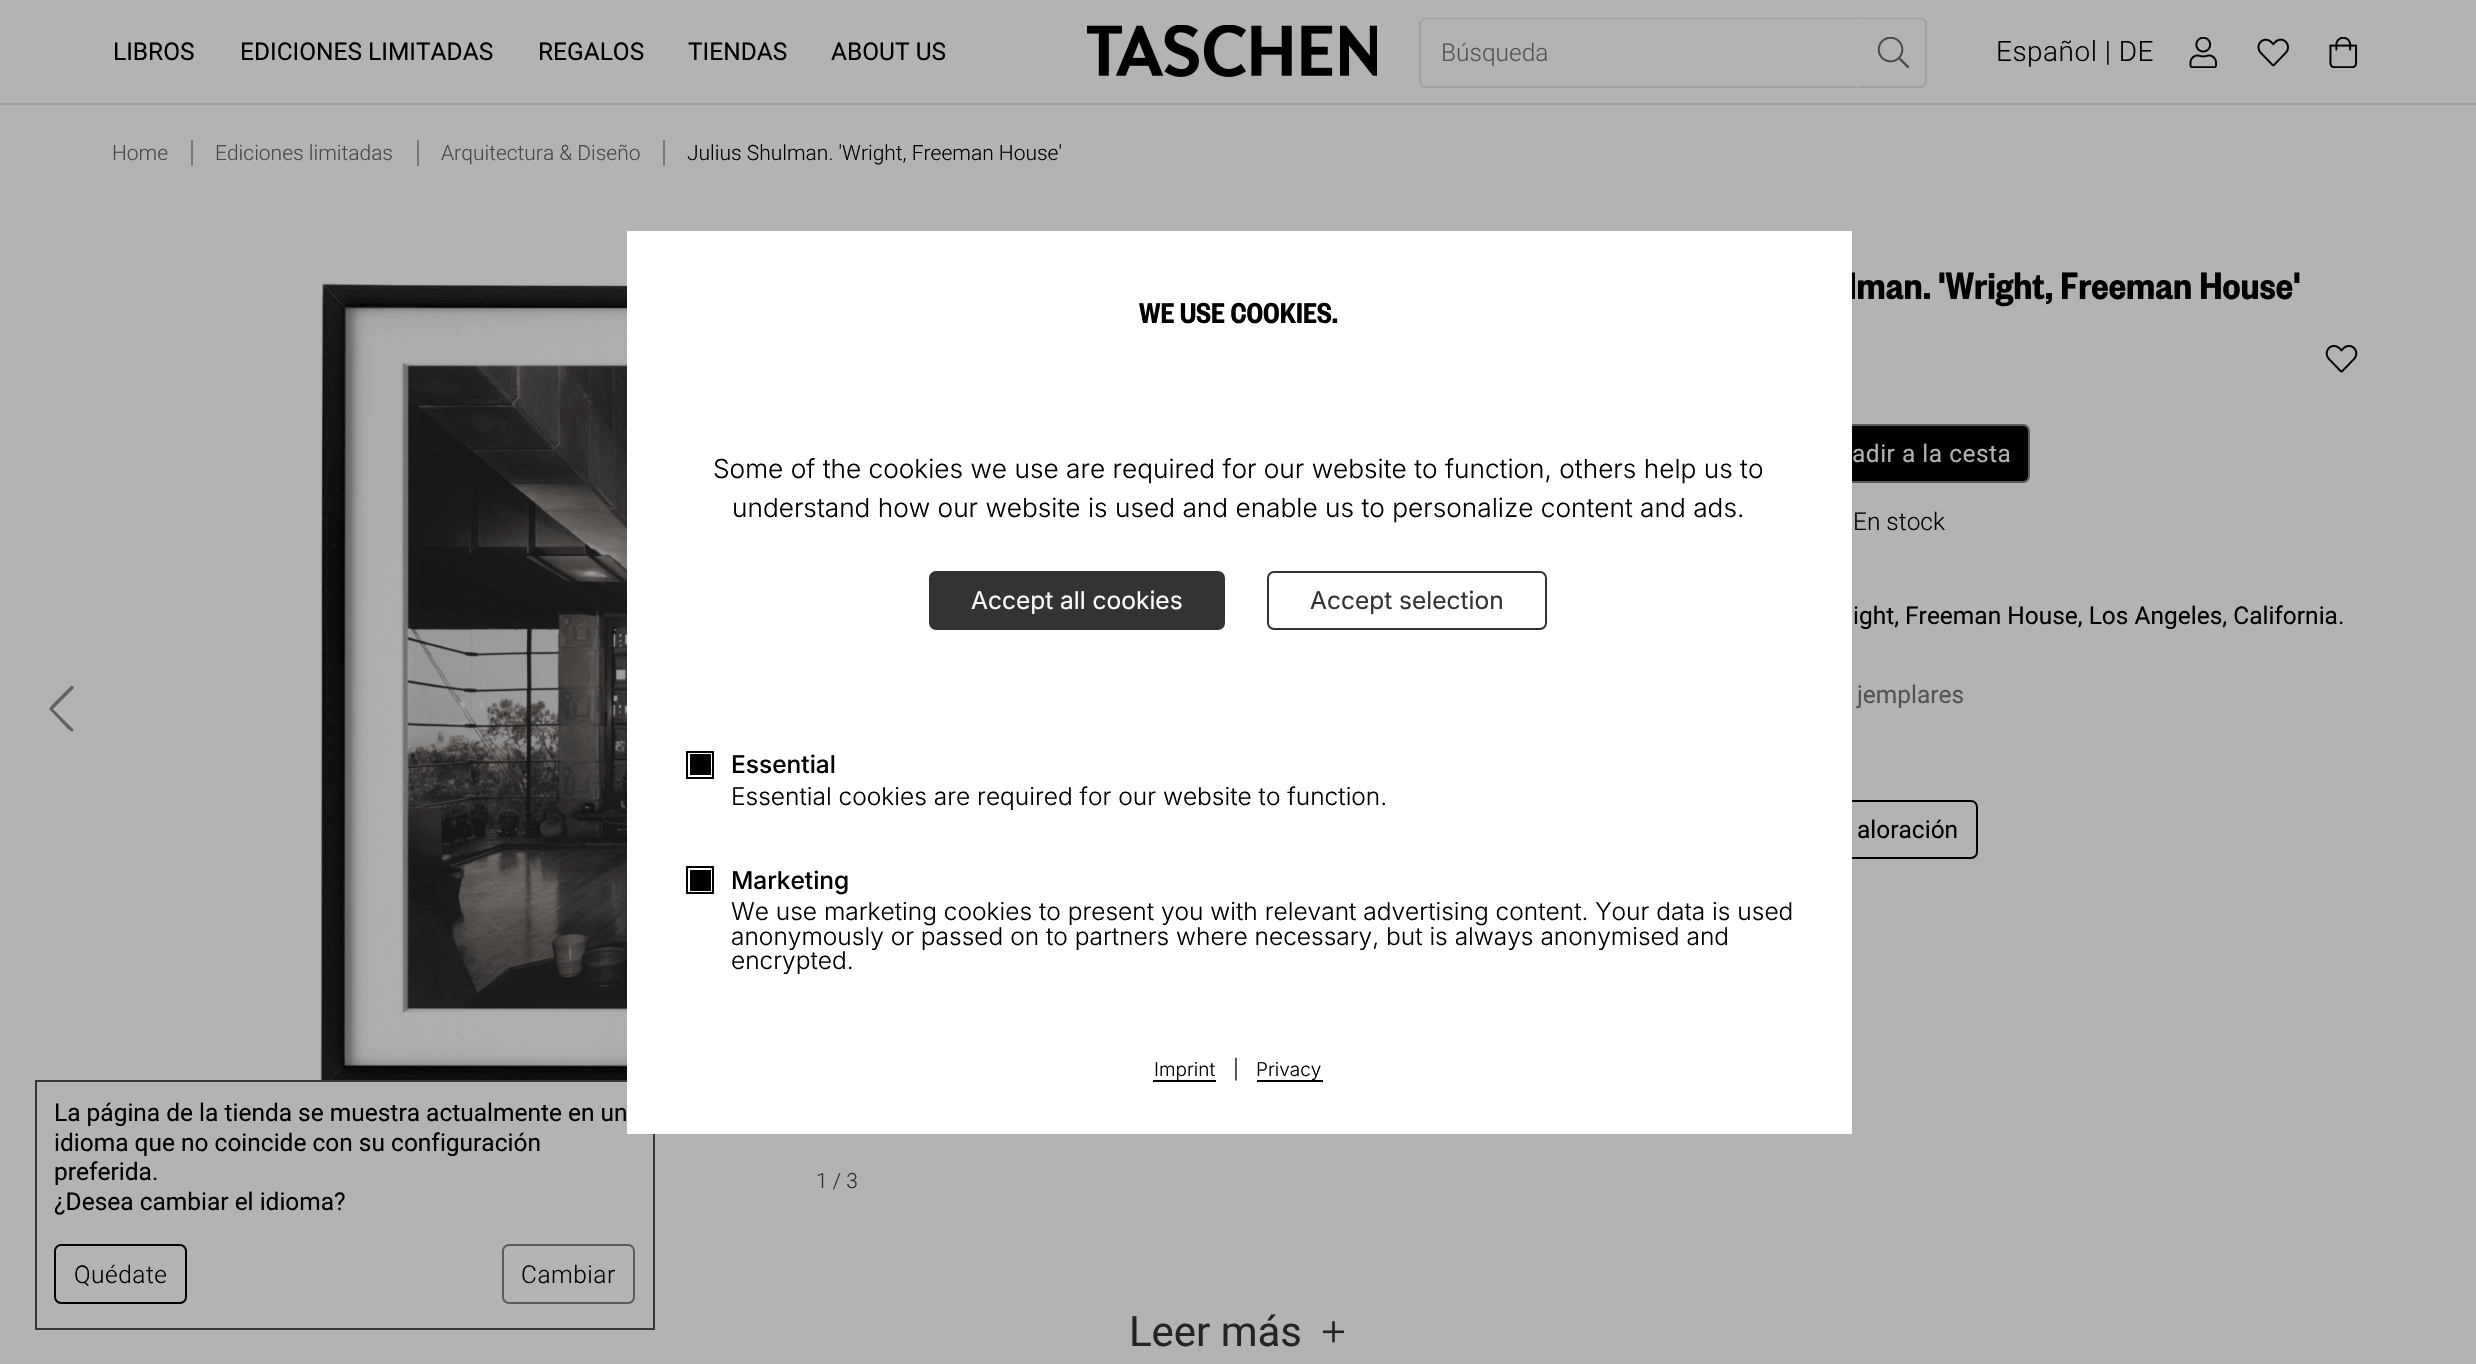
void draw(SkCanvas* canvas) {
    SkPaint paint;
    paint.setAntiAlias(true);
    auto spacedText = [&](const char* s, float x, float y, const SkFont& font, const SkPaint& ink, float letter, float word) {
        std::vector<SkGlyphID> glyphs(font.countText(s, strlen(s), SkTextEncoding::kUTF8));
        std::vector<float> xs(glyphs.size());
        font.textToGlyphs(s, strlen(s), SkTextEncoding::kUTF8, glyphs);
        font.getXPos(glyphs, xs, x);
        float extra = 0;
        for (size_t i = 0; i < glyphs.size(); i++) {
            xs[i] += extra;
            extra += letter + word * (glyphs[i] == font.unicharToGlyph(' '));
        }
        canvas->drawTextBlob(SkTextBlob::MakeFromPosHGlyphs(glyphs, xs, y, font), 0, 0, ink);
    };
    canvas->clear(0xFFB3B3B3);
    paint.setColor(0xFFA0A0A0);
    canvas->drawRect(SkRect::MakeXYWH(0, 103, 2476, 2), paint);
    SkFont font1(fontMgr->matchFamilyStyle("Roboto", SkFontStyle::Normal()), 24.5f);
    font1.setSubpixel(true);
    paint.setColor(0xFF000000);
    canvas->drawString("LIBROS", 113, 60, font1, paint);
    canvas->drawString("EDICIONES LIMITADAS", 240, 60, font1, paint);
    canvas->drawString("REGALOS", 538, 60, font1, paint);
    canvas->drawString("TIENDAS", 688, 60, font1, paint);
    canvas->drawString("ABOUT US", 831, 60, font1, paint);
    canvas->drawImageRect(SkImages::DeferredFromEncodedData(SkData::MakeFromFileName("img1.png")), SkRect::MakeXYWH(1087, 25, 290, 52), SkSamplingOptions());
    paint.setColor(0xFFA0A0A0);
    canvas->drawPath(SkPathBuilder().moveTo(1426, 18).cubicTo(1424, 18, 1423, 19, 1421, 20).lineTo(1422, 21).cubicTo(1423, 20, 1425, 19, 1426, 19).lineTo(1855, 19).lineTo(1856, 18).close().detach(), paint);
    canvas->drawPath(SkPathBuilder().moveTo(1857, 88).lineTo(1424, 88).lineTo(1421, 86).lineTo(1422, 84).cubicTo(1423, 85, 1425, 86, 1426, 86).lineTo(1855, 86).close().detach(), paint);
    canvas->drawPath(SkPathBuilder().moveTo(1419, 22).lineTo(1421, 20).lineTo(1422, 21).cubicTo(1422, 22, 1421, 23, 1421, 24).lineTo(1421, 80).cubicTo(1421, 82, 1422, 83, 1422, 84).lineTo(1421, 86).lineTo(1419, 82).close().detach(), paint);
    SkFont font2(fontMgr->matchFamilyStyle("Roboto", SkFontStyle(300, SkFontStyle::kNormal_Width, SkFontStyle::kUpright_Slant)), 24.5f);
    font2.setSubpixel(true);
    paint.setColor(0xFF515354);
    canvas->drawString("Búsqueda", 1441, 61, font2, paint);
    paint.setColor(0xFFA0A0A0);
    canvas->drawPath(SkPathBuilder().moveTo(1925, 20).cubicTo(1923, 19, 1922, 18, 1920, 18).lineTo(1857, 18).lineTo(1858, 19).lineTo(1921, 19).lineTo(1924, 21).close().detach(), paint);
    canvas->drawPath(SkPathBuilder().moveTo(1925, 20).lineTo(1927, 22).lineTo(1927, 82).lineTo(1925, 86).lineTo(1924, 84).cubicTo(1924, 83, 1925, 82, 1925, 80).lineTo(1925, 24).cubicTo(1925, 23, 1924, 22, 1924, 21).close().detach(), paint);
    canvas->drawPath(SkPathBuilder().moveTo(1857, 88).lineTo(1858, 86).lineTo(1921, 86).lineTo(1924, 84).lineTo(1925, 86).lineTo(1922, 88).close().detach(), paint);
    canvas->drawImageRect(SkImages::DeferredFromEncodedData(SkData::MakeFromFileName("img2.png")), SkRect::MakeXYWH(1877, 37, 33, 31), SkSamplingOptions());
    SkFont font3(fontMgr->matchFamilyStyle("Roboto", SkFontStyle(300, SkFontStyle::kNormal_Width, SkFontStyle::kUpright_Slant)), 28);
    font3.setSubpixel(true);
    paint.setColor(0xFF000000);
    spacedText("Español | DE", 1996, 61, font3, paint, 0.5f, 0);
    canvas->drawImageRect(SkImages::DeferredFromEncodedData(SkData::MakeFromFileName("img3.png")), SkRect::MakeXYWH(2189, 37, 29, 31), SkSamplingOptions());
    canvas->drawImageRect(SkImages::DeferredFromEncodedData(SkData::MakeFromFileName("img4.png")), SkRect::MakeXYWH(2257, 38, 32, 29), SkSamplingOptions());
    canvas->drawImageRect(SkImages::DeferredFromEncodedData(SkData::MakeFromFileName("img5.png")), SkRect::MakeXYWH(2329, 37, 29, 31), SkSamplingOptions());
    SkFont font4(fontMgr->matchFamilyStyle("Roboto", SkFontStyle(300, SkFontStyle::kNormal_Width, SkFontStyle::kUpright_Slant)), 21);
    font4.setSubpixel(true);
    paint.setColor(0xFF474747);
    canvas->drawString("Home", 112, 160, font4, paint);
    paint.setColor(0xFF777777);
    canvas->drawRect(SkRect::MakeXYWH(191, 140, 2, 26), paint);
    paint.setColor(0xFF474747);
    canvas->drawString("Ediciones limitadas", 215, 160, font4, paint);
    paint.setColor(0xFF777777);
    canvas->drawRect(SkRect::MakeXYWH(417, 140, 2, 26), paint);
    paint.setColor(0xFF474747);
    canvas->drawString("Arquitectura & Diseño", 441, 160, font4, paint);
    paint.setColor(0xFF777777);
    canvas->drawRect(SkRect::MakeXYWH(663, 140, 2, 26), paint);
    paint.setColor(0xFF000000);
    canvas->drawString("Julius Shulman. 'Wright, Freeman House'", 687, 160, font4, paint);
    SkFont font5(fontMgr->matchFamilyStyle("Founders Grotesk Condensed", SkFontStyle(600, SkFontStyle::kNormal_Width, SkFontStyle::kUpright_Slant)), 42);
    font5.setSubpixel(true);
    canvas->drawString("lman. 'Wright, Freeman House'", 1848, 299, font5, paint);
    canvas->drawImageRect(SkImages::DeferredFromEncodedData(SkData::MakeFromFileName("img6.png")), SkRect::MakeXYWH(2325, 345, 33, 28), SkSamplingOptions());
    canvas->drawRoundRect(SkRect::MakeXYWH(1804, 425, 225, 57), 6, 6, paint);
    paint.setStyle(SkPaint::kStroke_Style);
    paint.setStrokeWidth(2);
    paint.setColor(0xFF5B5B5B);
    canvas->drawRoundRect(SkRect::MakeXYWH(1804, 425, 225, 57), 6, 6, paint);
    paint.setStyle(SkPaint::kFill_Style);
    paint.setColor(0xFFB3B3B3);
    spacedText("adir a la cesta", 1852, 462, font1, paint, 0.5f, 0);
    paint.setColor(0xFF000000);
    canvas->drawString("En stock", 1853, 530, font2, paint);
    canvas->drawString("ight, Freeman House, Los Angeles, California.", 1853, 624, font1, paint);
    paint.setColor(0xFF515354);
    canvas->drawString("jemplares", 1857, 703, font1, paint);
    paint.setStyle(SkPaint::kStroke_Style);
    paint.setColor(0xFF000000);
    canvas->drawRoundRect(SkRect::MakeXYWH(1693, 801, 284, 57), 6, 6, paint);
    paint.setStyle(SkPaint::kFill_Style);
    canvas->drawString("aloración", 1857, 838, font1, paint);
    paint.setColor(0xFF626262);
    canvas->drawPath(SkPathBuilder().moveTo(73, 731).cubicTo(74, 730, 74, 729, 73, 729).lineTo(53, 709).lineTo(74, 688).cubicTo(74, 687, 72, 685, 71, 686).lineTo(53, 704).cubicTo(48, 710, 48, 708, 53, 713).lineTo(67, 728).cubicTo(69, 729, 71, 733, 73, 731).close().detach(), paint);
    canvas->drawImageRect(SkImages::DeferredFromEncodedData(SkData::MakeFromFileName("img7.png")), SkRect::MakeXYWH(320, 283, 307, 797), SkSamplingOptions());
    paint.setColor(0xFF2D2D2D);
    canvas->drawString("1 / 3", 816, 1188, font4, paint);
    SkFont font6(fontMgr->matchFamilyStyle("Roboto", SkFontStyle::Normal()), 42);
    font6.setSubpixel(true);
    paint.setColor(0xFF242424);
    canvas->drawString("Leer más", 1129, 1346, font6, paint);
    canvas->drawImageRect(SkImages::DeferredFromEncodedData(SkData::MakeFromFileName("img8.png")), SkRect::MakeXYWH(1323, 1321, 21, 22), SkSamplingOptions());
    paint.setStyle(SkPaint::kStroke_Style);
    paint.setColor(0xFF33383D);
    canvas->drawRect(SkRect::MakeXYWH(36, 1081, 618, 248), paint);
    paint.setStyle(SkPaint::kFill_Style);
    paint.setColor(0xFF000000);
    canvas->drawString("La página de la tienda se muestra actualmente en un", 54, 1121, font1, paint);
    canvas->drawString("idioma que no coincide con su configuración", 54, 1151, font1, paint);
    canvas->drawString("preferida.", 54, 1180, font1, paint);
    canvas->drawString("¿Desea cambiar el idioma?", 54, 1210, font1, paint);
    paint.setStyle(SkPaint::kStroke_Style);
    canvas->drawRoundRect(SkRect::MakeXYWH(55, 1245, 131, 58), 6, 6, paint);
    paint.setStyle(SkPaint::kFill_Style);
    spacedText("Quédate", 74, 1283, font2, paint, 0.5f, 0);
    paint.setStyle(SkPaint::kStroke_Style);
    paint.setColor(0xFF5B5B5B);
    canvas->drawRoundRect(SkRect::MakeXYWH(503, 1245, 131, 58), 6, 6, paint);
    paint.setStyle(SkPaint::kFill_Style);
    paint.setColor(0xFF000000);
    spacedText("Cambiar", 521, 1283, font2, paint, 0.5f, 0);
    paint.setColor(0xFFFFFFFF);
    canvas->drawRect(SkRect::MakeXYWH(627, 231, 1225, 903), paint);
    SkFont font7(fontMgr->matchFamilyStyle("Founders Grotesk Condensed", SkFontStyle(600, SkFontStyle::kNormal_Width, SkFontStyle::kUpright_Slant)), 31.5f);
    font7.setSubpixel(true);
    paint.setColor(0xFF000000);
    canvas->drawString("WE USE COOKIES.", 1139, 323, font7, paint);
    SkFont font8(fontMgr->matchFamilyStyle("Inter", SkFontStyle(300, SkFontStyle::kNormal_Width, SkFontStyle::kUpright_Slant)), 26.25f);
    font8.setSubpixel(true);
    canvas->drawString("Some of the cookies we use are required for our website to function, others help us to", 713, 478, font8, paint);
    canvas->drawString("understand how our website is used and enable us to personalize content and ads.", 732, 517, font8, paint);
    paint.setColor(0xFF333333);
    canvas->drawRoundRect(SkRect::MakeXYWH(929, 571, 296, 59), 7, 7, paint);
    SkFont font9(fontMgr->matchFamilyStyle("Inter", SkFontStyle::Normal()), 24.5f);
    font9.setSubpixel(true);
    paint.setColor(0xFFFFFFFF);
    canvas->drawString("Accept all cookies", 971, 609, font9, paint);
    paint.setStyle(SkPaint::kStroke_Style);
    paint.setColor(0xFF333333);
    canvas->drawRoundRect(SkRect::MakeXYWH(1268, 572, 278, 57), 6, 6, paint);
    paint.setStyle(SkPaint::kFill_Style);
    canvas->drawString("Accept selection", 1310, 609, font9, paint);
    paint.setStyle(SkPaint::kStroke_Style);
    paint.setColor(0xFF000000);
    canvas->drawRect(SkRect::MakeXYWH(687, 752, 26, 26), paint);
    paint.setStyle(SkPaint::kFill_Style);
    canvas->drawRect(SkRect::MakeXYWH(690, 754, 21, 21), paint);
    SkFont font10(fontMgr->matchFamilyStyle("Inter", SkFontStyle(500, SkFontStyle::kNormal_Width, SkFontStyle::kUpright_Slant)), 24.5f);
    font10.setSubpixel(true);
    canvas->drawString("Essential", 731, 773, font10, paint);
    SkFont font11(fontMgr->matchFamilyStyle("Inter", SkFontStyle(300, SkFontStyle::kNormal_Width, SkFontStyle::kUpright_Slant)), 24.5f);
    font11.setSubpixel(true);
    canvas->drawString("Essential cookies are required for our website to function.", 731, 805, font11, paint);
    paint.setStyle(SkPaint::kStroke_Style);
    canvas->drawRect(SkRect::MakeXYWH(687, 867, 26, 26), paint);
    paint.setStyle(SkPaint::kFill_Style);
    canvas->drawRect(SkRect::MakeXYWH(690, 870, 21, 21), paint);
    canvas->drawString("Marketing", 731, 889, font10, paint);
    canvas->drawString("We use marketing cookies to present you with relevant advertising content. Your data is used", 731, 920, font11, paint);
    canvas->drawString("anonymously or passed on to partners where necessary, but is always anonymised and", 731, 945, font11, paint);
    canvas->drawString("encrypted.", 731, 969, font11, paint);
    canvas->drawRect(SkRect::MakeXYWH(1153, 1080, 63, 2), paint);
    SkFont font12(fontMgr->matchFamilyStyle("Inter", SkFontStyle(300, SkFontStyle::kNormal_Width, SkFontStyle::kUpright_Slant)), 19);
    font12.setSubpixel(true);
    canvas->drawString("Imprint", 1154, 1076, font12, paint);
    canvas->drawString("|", 1233, 1076, font12, paint);
    canvas->drawRect(SkRect::MakeXYWH(1257, 1080, 66, 2), paint);
    canvas->drawString("Privacy", 1256, 1076, font12, paint);
}
